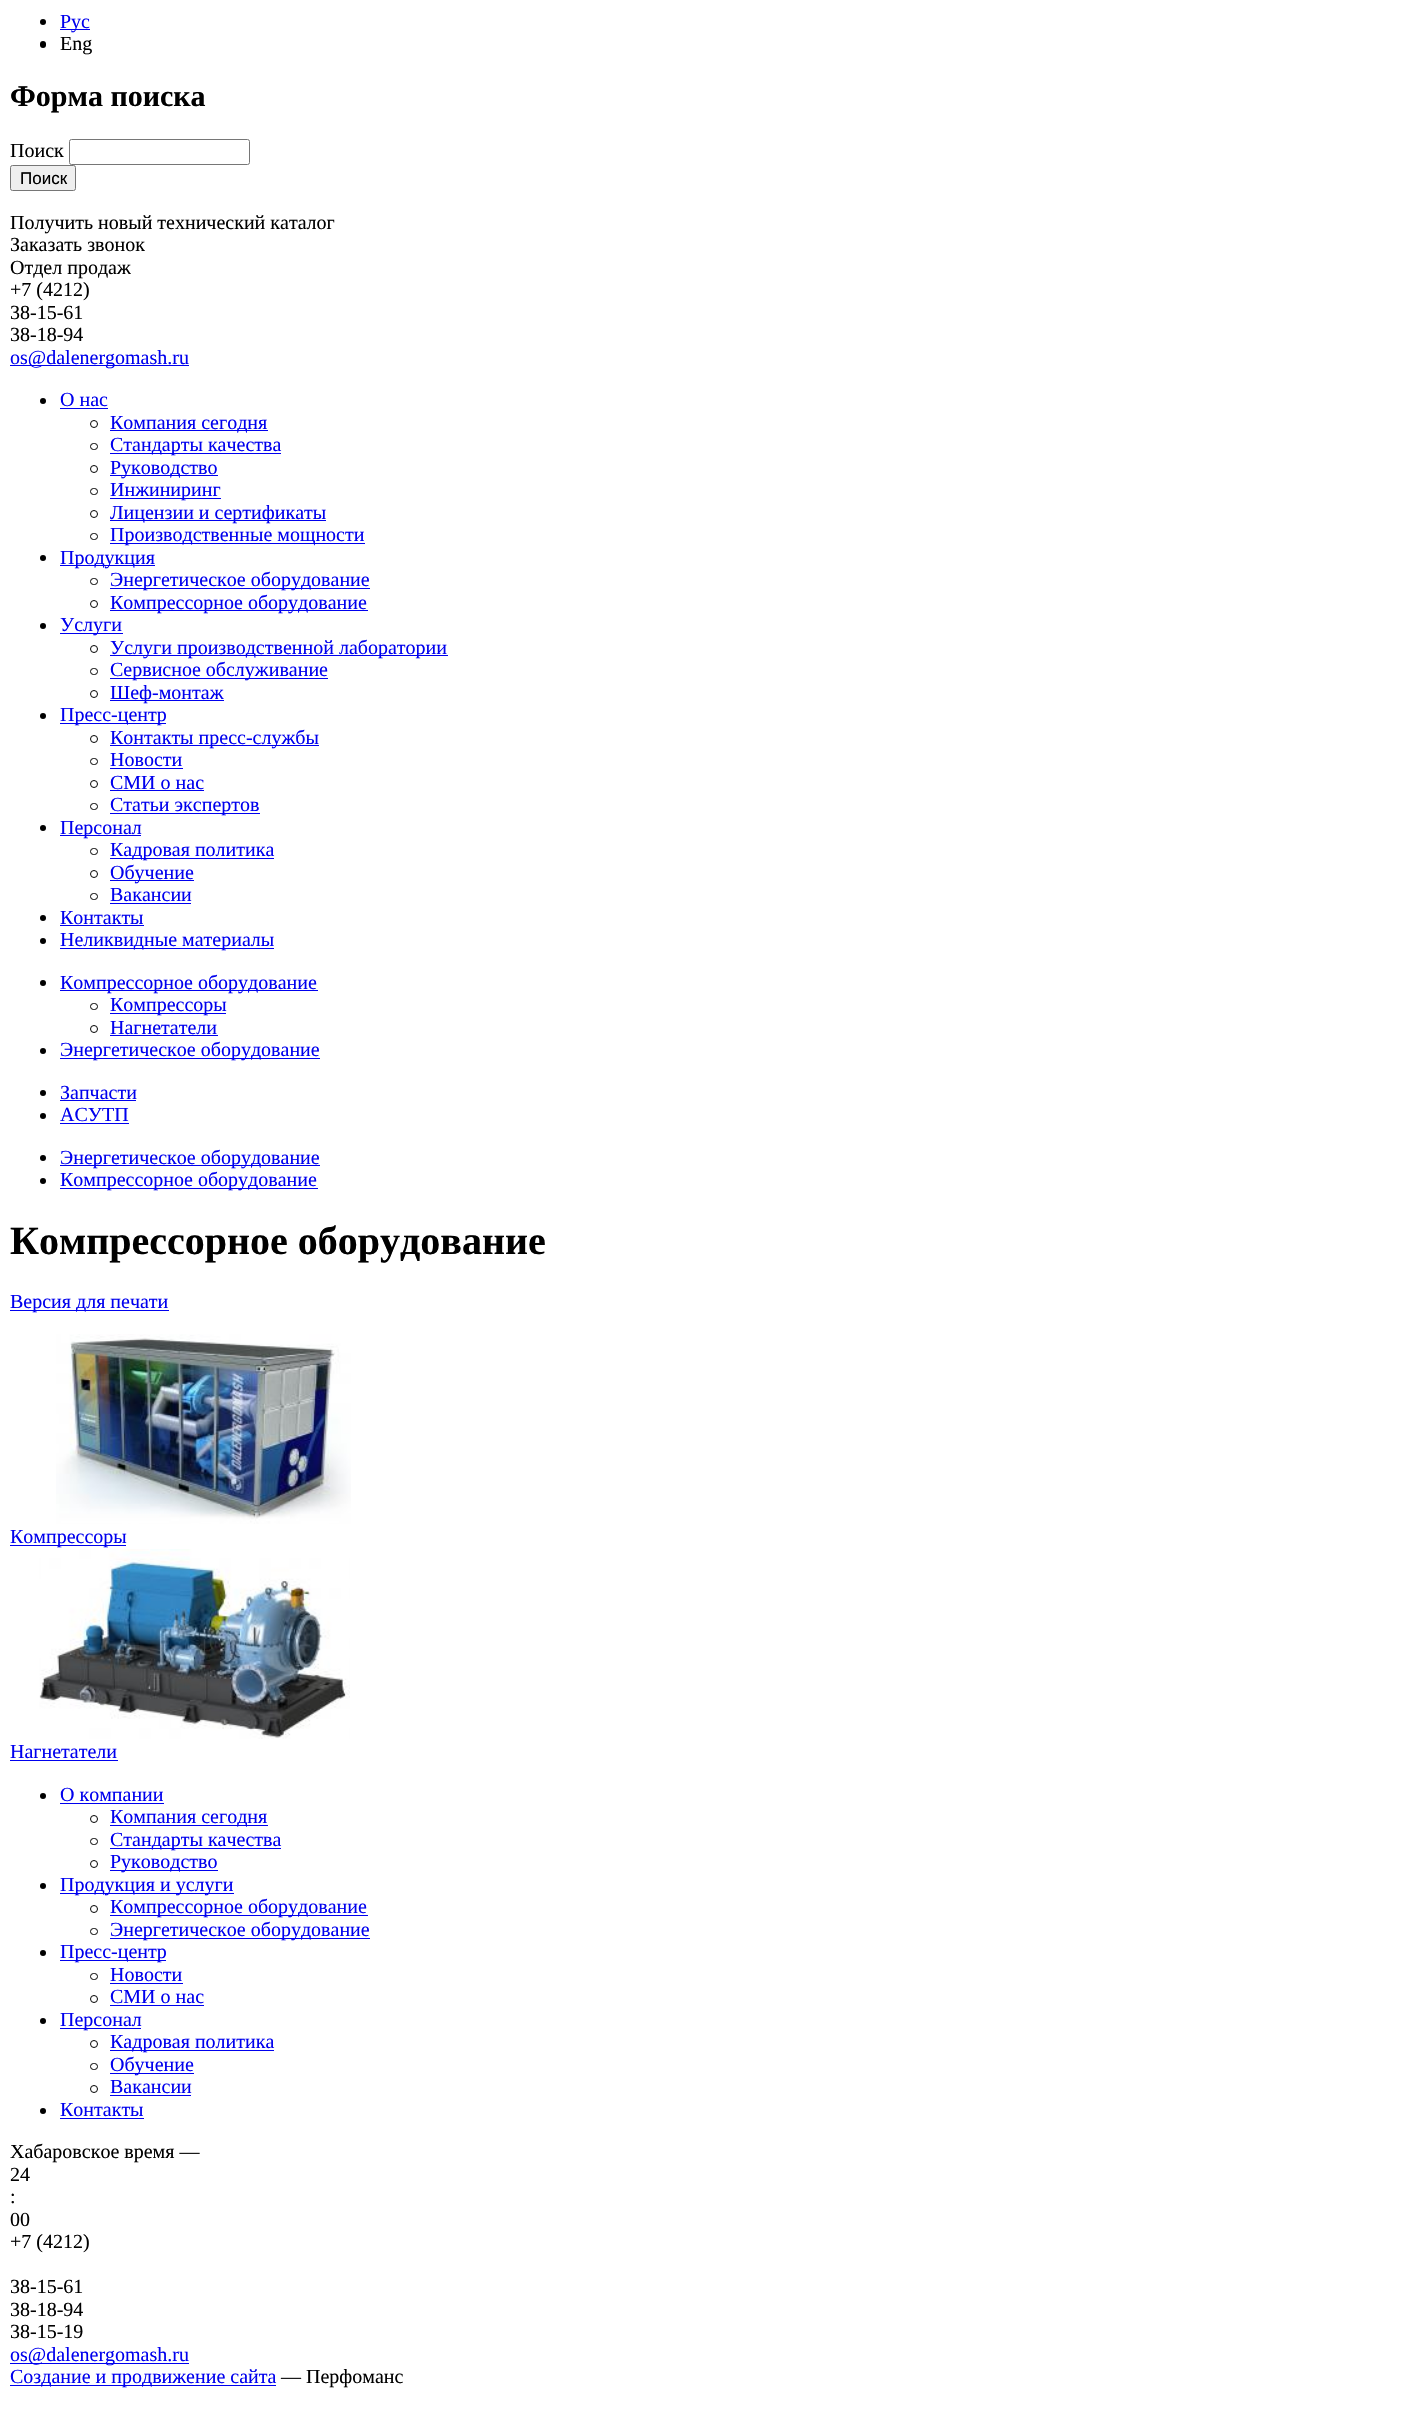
void draw(SkCanvas* canvas) {
    SkPaint paint;
    paint.setAntiAlias(true);
    canvas->clear(0xFFFFFFFF);
    paint.setColor(0xFF000000);
    canvas->drawCircle(43, 22, 3, paint);
    paint.setColor(0xFF0000EE);
    canvas->drawRect(SkRect::MakeXYWH(60, 29, 30, 1), paint);
    SkFont font1(fontMgr->matchFamilyStyle("Liberation Serif", SkFontStyle::Normal()), 20);
    font1.setSubpixel(true);
    canvas->drawString("Рус", 60, 28, font1, paint);
    paint.setColor(0xFF000000);
    canvas->drawRoundRect(SkRect::MakeXYWH(40, 41, 6, 7), 3, 3, paint);
    canvas->drawString("Eng", 60, 50, font1, paint);
    SkFont font2(fontMgr->matchFamilyStyle("Liberation Serif", SkFontStyle::Bold()), 30);
    font2.setSubpixel(true);
    canvas->drawString("Форма поиска", 10, 106, font2, paint);
    canvas->drawString("Поиск", 10, 157, font1, paint);
    paint.setStyle(SkPaint::kStroke_Style);
    paint.setStrokeWidth(1);
    paint.setColor(0xFF767676);
    canvas->drawRoundRect(SkRect::MakeXYWH(69.5f, 139.5f, 180, 25), 2, 2, paint);
    paint.setStyle(SkPaint::kFill_Style);
    paint.setColor(0xFFEFEFEF);
    canvas->drawRoundRect(SkRect::MakeXYWH(10.5f, 165.5f, 65, 25), 2, 2, paint);
    paint.setStyle(SkPaint::kStroke_Style);
    paint.setColor(0xFF767676);
    canvas->drawRoundRect(SkRect::MakeXYWH(10.5f, 165.5f, 65, 25), 2, 2, paint);
    SkFont font3(fontMgr->matchFamilyStyle("Liberation Sans", SkFontStyle::Normal()), 17);
    font3.setSubpixel(true);
    paint.setStyle(SkPaint::kFill_Style);
    paint.setColor(0xFF000000);
    canvas->drawString("Поиск", 20, 184, font3, paint);
    canvas->drawString("Получить новый технический каталог", 10, 229, font1, paint);
    canvas->drawString("Заказать звонок", 10, 251, font1, paint);
    canvas->drawString("Отдел продаж", 10, 274, font1, paint);
    canvas->drawString("+7 (4212)", 10, 296, font1, paint);
    canvas->drawString("38-15-61", 10, 319, font1, paint);
    canvas->drawString("38-18-94", 10, 341, font1, paint);
    paint.setColor(0xFF0000EE);
    canvas->drawRect(SkRect::MakeXYWH(10, 365, 179, 1), paint);
    canvas->drawString("os@dalenergomash.ru", 10, 364, font1, paint);
    paint.setColor(0xFF000000);
    canvas->drawCircle(43, 401, 3, paint);
    paint.setColor(0xFF0000EE);
    canvas->drawString("О нас", 60, 406, font1, paint);
    canvas->drawRect(SkRect::MakeXYWH(60, 408, 48, 1), paint);
    paint.setStyle(SkPaint::kStroke_Style);
    paint.setColor(0xFF000000);
    canvas->drawCircle(94, 424, 3.5f, paint);
    paint.setStyle(SkPaint::kFill_Style);
    paint.setColor(0xFF0000EE);
    canvas->drawRect(SkRect::MakeXYWH(110, 430, 158, 1), paint);
    canvas->drawString("Компания сегодня", 110, 429, font1, paint);
    paint.setStyle(SkPaint::kStroke_Style);
    paint.setColor(0xFF000000);
    canvas->drawRoundRect(SkRect::MakeXYWH(90.5f, 443.5f, 7, 6), 3, 3, paint);
    paint.setStyle(SkPaint::kFill_Style);
    paint.setColor(0xFF0000EE);
    canvas->drawRect(SkRect::MakeXYWH(110, 453, 171, 1), paint);
    canvas->drawString("Стандарты качества", 110, 451, font1, paint);
    paint.setStyle(SkPaint::kStroke_Style);
    paint.setColor(0xFF000000);
    canvas->drawCircle(94, 469, 3.5f, paint);
    paint.setStyle(SkPaint::kFill_Style);
    paint.setColor(0xFF0000EE);
    canvas->drawRect(SkRect::MakeXYWH(110, 475, 108, 1), paint);
    canvas->drawString("Руководство", 110, 474, font1, paint);
    paint.setStyle(SkPaint::kStroke_Style);
    paint.setColor(0xFF000000);
    canvas->drawRoundRect(SkRect::MakeXYWH(90.5f, 488.5f, 7, 6), 3, 3, paint);
    paint.setStyle(SkPaint::kFill_Style);
    paint.setColor(0xFF0000EE);
    canvas->drawRect(SkRect::MakeXYWH(110, 498, 111, 1), paint);
    canvas->drawString("Инжиниринг", 110, 496, font1, paint);
    paint.setStyle(SkPaint::kStroke_Style);
    paint.setColor(0xFF000000);
    canvas->drawCircle(94, 514, 3.5f, paint);
    paint.setStyle(SkPaint::kFill_Style);
    paint.setColor(0xFF0000EE);
    canvas->drawRect(SkRect::MakeXYWH(110, 520, 216, 1), paint);
    canvas->drawString("Лицензии и сертификаты", 110, 519, font1, paint);
    paint.setStyle(SkPaint::kStroke_Style);
    paint.setColor(0xFF000000);
    canvas->drawRoundRect(SkRect::MakeXYWH(90.5f, 533.5f, 7, 6), 3, 3, paint);
    paint.setStyle(SkPaint::kFill_Style);
    paint.setColor(0xFF0000EE);
    canvas->drawRect(SkRect::MakeXYWH(110, 543, 255, 1), paint);
    canvas->drawString("Производственные мощности", 110, 541, font1, paint);
    paint.setColor(0xFF000000);
    canvas->drawCircle(43, 558, 3, paint);
    paint.setColor(0xFF0000EE);
    canvas->drawRect(SkRect::MakeXYWH(60, 565, 95, 1), paint);
    canvas->drawString("Продукция", 60, 564, font1, paint);
    paint.setStyle(SkPaint::kStroke_Style);
    paint.setColor(0xFF000000);
    canvas->drawRoundRect(SkRect::MakeXYWH(90.5f, 578.5f, 7, 6), 3, 3, paint);
    paint.setStyle(SkPaint::kFill_Style);
    paint.setColor(0xFF0000EE);
    canvas->drawRect(SkRect::MakeXYWH(110, 588, 260, 1), paint);
    canvas->drawString("Энергетическое оборудование", 110, 586, font1, paint);
    paint.setStyle(SkPaint::kStroke_Style);
    paint.setColor(0xFF000000);
    canvas->drawCircle(94, 604, 3.5f, paint);
    paint.setStyle(SkPaint::kFill_Style);
    paint.setColor(0xFF0000EE);
    canvas->drawRect(SkRect::MakeXYWH(110, 610, 258, 1), paint);
    canvas->drawString("Компрессорное оборудование", 110, 609, font1, paint);
    paint.setColor(0xFF000000);
    canvas->drawCircle(43, 626, 3, paint);
    paint.setColor(0xFF0000EE);
    canvas->drawRect(SkRect::MakeXYWH(60, 633, 63, 1), paint);
    canvas->drawString("Услуги", 60, 631, font1, paint);
    paint.setStyle(SkPaint::kStroke_Style);
    paint.setColor(0xFF000000);
    canvas->drawCircle(94, 649, 3.5f, paint);
    paint.setStyle(SkPaint::kFill_Style);
    paint.setColor(0xFF0000EE);
    canvas->drawRect(SkRect::MakeXYWH(110, 655, 338, 1), paint);
    canvas->drawString("Услуги производственной лаборатории", 110, 654, font1, paint);
    paint.setStyle(SkPaint::kStroke_Style);
    paint.setColor(0xFF000000);
    canvas->drawRoundRect(SkRect::MakeXYWH(90.5f, 668.5f, 7, 6), 3, 3, paint);
    paint.setStyle(SkPaint::kFill_Style);
    paint.setColor(0xFF0000EE);
    canvas->drawRect(SkRect::MakeXYWH(110, 678, 218, 1), paint);
    canvas->drawString("Сервисное обслуживание", 110, 676, font1, paint);
    paint.setStyle(SkPaint::kStroke_Style);
    paint.setColor(0xFF000000);
    canvas->drawCircle(94, 694, 3.5f, paint);
    paint.setStyle(SkPaint::kFill_Style);
    paint.setColor(0xFF0000EE);
    canvas->drawRect(SkRect::MakeXYWH(110, 700, 114, 1), paint);
    canvas->drawString("Шеф-монтаж", 110, 699, font1, paint);
    paint.setColor(0xFF000000);
    canvas->drawCircle(43, 716, 3, paint);
    paint.setColor(0xFF0000EE);
    canvas->drawRect(SkRect::MakeXYWH(60, 723, 106, 1), paint);
    canvas->drawString("Пресс-центр", 60, 721, font1, paint);
    paint.setStyle(SkPaint::kStroke_Style);
    paint.setColor(0xFF000000);
    canvas->drawCircle(94, 739, 3.5f, paint);
    paint.setStyle(SkPaint::kFill_Style);
    paint.setColor(0xFF0000EE);
    canvas->drawRect(SkRect::MakeXYWH(110, 745, 209, 1), paint);
    canvas->drawString("Контакты пресс-службы", 110, 744, font1, paint);
    paint.setStyle(SkPaint::kStroke_Style);
    paint.setColor(0xFF000000);
    canvas->drawRoundRect(SkRect::MakeXYWH(90.5f, 758.5f, 7, 6), 3, 3, paint);
    paint.setStyle(SkPaint::kFill_Style);
    paint.setColor(0xFF0000EE);
    canvas->drawString("Новости", 110, 766, font1, paint);
    canvas->drawRect(SkRect::MakeXYWH(110, 768, 73, 1), paint);
    paint.setStyle(SkPaint::kStroke_Style);
    paint.setColor(0xFF000000);
    canvas->drawCircle(94, 784, 3.5f, paint);
    paint.setStyle(SkPaint::kFill_Style);
    paint.setColor(0xFF0000EE);
    canvas->drawString("СМИ о нас", 110, 789, font1, paint);
    canvas->drawRect(SkRect::MakeXYWH(110, 790, 94, 1), paint);
    paint.setStyle(SkPaint::kStroke_Style);
    paint.setColor(0xFF000000);
    canvas->drawRoundRect(SkRect::MakeXYWH(90.5f, 803.5f, 7, 6), 3, 3, paint);
    paint.setStyle(SkPaint::kFill_Style);
    paint.setColor(0xFF0000EE);
    canvas->drawRect(SkRect::MakeXYWH(110, 813, 150, 1), paint);
    canvas->drawString("Статьи экспертов", 110, 811, font1, paint);
    paint.setColor(0xFF000000);
    canvas->drawCircle(43, 828, 3, paint);
    paint.setColor(0xFF0000EE);
    canvas->drawRect(SkRect::MakeXYWH(60, 835, 81, 1), paint);
    canvas->drawString("Персонал", 60, 834, font1, paint);
    paint.setStyle(SkPaint::kStroke_Style);
    paint.setColor(0xFF000000);
    canvas->drawRoundRect(SkRect::MakeXYWH(90.5f, 848.5f, 7, 6), 3, 3, paint);
    paint.setStyle(SkPaint::kFill_Style);
    paint.setColor(0xFF0000EE);
    canvas->drawRect(SkRect::MakeXYWH(110, 858, 164, 1), paint);
    canvas->drawString("Кадровая политика", 110, 856, font1, paint);
    paint.setStyle(SkPaint::kStroke_Style);
    paint.setColor(0xFF000000);
    canvas->drawCircle(94, 874, 3.5f, paint);
    paint.setStyle(SkPaint::kFill_Style);
    paint.setColor(0xFF0000EE);
    canvas->drawRect(SkRect::MakeXYWH(110, 880, 84, 1), paint);
    canvas->drawString("Обучение", 110, 879, font1, paint);
    paint.setStyle(SkPaint::kStroke_Style);
    paint.setColor(0xFF000000);
    canvas->drawRoundRect(SkRect::MakeXYWH(90.5f, 893.5f, 7, 6), 3, 3, paint);
    paint.setStyle(SkPaint::kFill_Style);
    paint.setColor(0xFF0000EE);
    canvas->drawString("Вакансии", 110, 901, font1, paint);
    canvas->drawRect(SkRect::MakeXYWH(110, 903, 81, 1), paint);
    paint.setColor(0xFF000000);
    canvas->drawCircle(43, 918, 3, paint);
    paint.setColor(0xFF0000EE);
    canvas->drawString("Контакты", 60, 924, font1, paint);
    canvas->drawRect(SkRect::MakeXYWH(60, 925, 84, 1), paint);
    paint.setColor(0xFF000000);
    canvas->drawCircle(43, 941, 3, paint);
    paint.setColor(0xFF0000EE);
    canvas->drawRect(SkRect::MakeXYWH(60, 948, 214, 1), paint);
    canvas->drawString("Неликвидные материалы", 60, 946, font1, paint);
    paint.setColor(0xFF000000);
    canvas->drawCircle(43, 983, 3, paint);
    paint.setColor(0xFF0000EE);
    canvas->drawRect(SkRect::MakeXYWH(60, 990, 258, 1), paint);
    canvas->drawString("Компрессорное оборудование", 60, 989, font1, paint);
    paint.setStyle(SkPaint::kStroke_Style);
    paint.setColor(0xFF000000);
    canvas->drawRoundRect(SkRect::MakeXYWH(90.5f, 1003.5f, 7, 6), 3, 3, paint);
    paint.setStyle(SkPaint::kFill_Style);
    paint.setColor(0xFF0000EE);
    canvas->drawRect(SkRect::MakeXYWH(110, 1013, 116, 1), paint);
    canvas->drawString("Компрессоры", 110, 1011, font1, paint);
    paint.setStyle(SkPaint::kStroke_Style);
    paint.setColor(0xFF000000);
    canvas->drawCircle(94, 1029, 3.5f, paint);
    paint.setStyle(SkPaint::kFill_Style);
    paint.setColor(0xFF0000EE);
    canvas->drawString("Нагнетатели", 110, 1034, font1, paint);
    canvas->drawRect(SkRect::MakeXYWH(110, 1035, 108, 1), paint);
    paint.setColor(0xFF000000);
    canvas->drawCircle(43, 1051, 3, paint);
    paint.setColor(0xFF0000EE);
    canvas->drawRect(SkRect::MakeXYWH(60, 1058, 260, 1), paint);
    canvas->drawString("Энергетическое оборудование", 60, 1056, font1, paint);
    paint.setColor(0xFF000000);
    canvas->drawCircle(43, 1093, 3, paint);
    paint.setColor(0xFF0000EE);
    canvas->drawString("Запчасти", 60, 1099, font1, paint);
    canvas->drawRect(SkRect::MakeXYWH(60, 1100, 76, 1), paint);
    paint.setColor(0xFF000000);
    canvas->drawCircle(43, 1116, 3, paint);
    paint.setColor(0xFF0000EE);
    canvas->drawString("АСУТП", 60, 1121, font1, paint);
    canvas->drawRect(SkRect::MakeXYWH(60, 1123, 69, 1), paint);
    paint.setColor(0xFF000000);
    canvas->drawCircle(43, 1158, 3, paint);
    paint.setColor(0xFF0000EE);
    canvas->drawRect(SkRect::MakeXYWH(60, 1165, 260, 1), paint);
    canvas->drawString("Энергетическое оборудование", 60, 1164, font1, paint);
    paint.setColor(0xFF000000);
    canvas->drawCircle(43, 1181, 3, paint);
    paint.setColor(0xFF0000EE);
    canvas->drawRect(SkRect::MakeXYWH(60, 1188, 258, 1), paint);
    canvas->drawString("Компрессорное оборудование", 60, 1186, font1, paint);
    SkFont font4(fontMgr->matchFamilyStyle("Liberation Serif", SkFontStyle::Bold()), 40);
    font4.setSubpixel(true);
    paint.setColor(0xFF000000);
    canvas->drawString("Компрессорное оборудование", 10, 1254, font4, paint);
    paint.setColor(0xFF0000EE);
    canvas->drawRect(SkRect::MakeXYWH(10, 1310, 159, 1), paint);
    canvas->drawString("Версия для печати", 10, 1308, font1, paint);
    canvas->drawImageRect(SkImages::DeferredFromEncodedData(SkData::MakeFromFileName("img1.png")), SkRect::MakeXYWH(56, 1334, 295, 190), SkSamplingOptions());
    canvas->drawRect(SkRect::MakeXYWH(10, 1545, 116, 1), paint);
    canvas->drawString("Компрессоры", 10, 1543, font1, paint);
    canvas->drawImageRect(SkImages::DeferredFromEncodedData(SkData::MakeFromFileName("img2.png")), SkRect::MakeXYWH(39, 1549, 311, 190), SkSamplingOptions());
    canvas->drawString("Нагнетатели", 10, 1758, font1, paint);
    canvas->drawRect(SkRect::MakeXYWH(10, 1760, 108, 1), paint);
    paint.setColor(0xFF000000);
    canvas->drawCircle(43, 1796, 3, paint);
    paint.setColor(0xFF0000EE);
    canvas->drawString("О компании", 60, 1801, font1, paint);
    canvas->drawRect(SkRect::MakeXYWH(60, 1803, 104, 1), paint);
    paint.setStyle(SkPaint::kStroke_Style);
    paint.setColor(0xFF000000);
    canvas->drawCircle(94, 1819, 3.5f, paint);
    paint.setStyle(SkPaint::kFill_Style);
    paint.setColor(0xFF0000EE);
    canvas->drawRect(SkRect::MakeXYWH(110, 1825, 158, 1), paint);
    canvas->drawString("Компания сегодня", 110, 1823, font1, paint);
    paint.setStyle(SkPaint::kStroke_Style);
    paint.setColor(0xFF000000);
    canvas->drawRoundRect(SkRect::MakeXYWH(90.5f, 1838.5f, 7, 6), 3, 3, paint);
    paint.setStyle(SkPaint::kFill_Style);
    paint.setColor(0xFF0000EE);
    canvas->drawRect(SkRect::MakeXYWH(110, 1848, 171, 1), paint);
    canvas->drawString("Стандарты качества", 110, 1846, font1, paint);
    paint.setStyle(SkPaint::kStroke_Style);
    paint.setColor(0xFF000000);
    canvas->drawCircle(94, 1864, 3.5f, paint);
    paint.setStyle(SkPaint::kFill_Style);
    paint.setColor(0xFF0000EE);
    canvas->drawRect(SkRect::MakeXYWH(110, 1870, 108, 1), paint);
    canvas->drawString("Руководство", 110, 1868, font1, paint);
    paint.setColor(0xFF000000);
    canvas->drawCircle(43, 1886, 3, paint);
    paint.setColor(0xFF0000EE);
    canvas->drawRect(SkRect::MakeXYWH(60, 1893, 174, 1), paint);
    canvas->drawString("Продукция и услуги", 60, 1891, font1, paint);
    paint.setStyle(SkPaint::kStroke_Style);
    paint.setColor(0xFF000000);
    canvas->drawCircle(94, 1909, 3.5f, paint);
    paint.setStyle(SkPaint::kFill_Style);
    paint.setColor(0xFF0000EE);
    canvas->drawRect(SkRect::MakeXYWH(110, 1915, 258, 1), paint);
    canvas->drawString("Компрессорное оборудование", 110, 1913, font1, paint);
    paint.setStyle(SkPaint::kStroke_Style);
    paint.setColor(0xFF000000);
    canvas->drawRoundRect(SkRect::MakeXYWH(90.5f, 1928.5f, 7, 6), 3, 3, paint);
    paint.setStyle(SkPaint::kFill_Style);
    paint.setColor(0xFF0000EE);
    canvas->drawRect(SkRect::MakeXYWH(110, 1938, 260, 1), paint);
    canvas->drawString("Энергетическое оборудование", 110, 1936, font1, paint);
    paint.setColor(0xFF000000);
    canvas->drawCircle(43, 1953, 3, paint);
    paint.setColor(0xFF0000EE);
    canvas->drawRect(SkRect::MakeXYWH(60, 1960, 106, 1), paint);
    canvas->drawString("Пресс-центр", 60, 1958, font1, paint);
    paint.setStyle(SkPaint::kStroke_Style);
    paint.setColor(0xFF000000);
    canvas->drawRoundRect(SkRect::MakeXYWH(90.5f, 1973.5f, 7, 6), 3, 3, paint);
    paint.setStyle(SkPaint::kFill_Style);
    paint.setColor(0xFF0000EE);
    canvas->drawString("Новости", 110, 1981, font1, paint);
    canvas->drawRect(SkRect::MakeXYWH(110, 1983, 73, 1), paint);
    paint.setStyle(SkPaint::kStroke_Style);
    paint.setColor(0xFF000000);
    canvas->drawCircle(94, 1999, 3.5f, paint);
    paint.setStyle(SkPaint::kFill_Style);
    paint.setColor(0xFF0000EE);
    canvas->drawString("СМИ о нас", 110, 2003, font1, paint);
    canvas->drawRect(SkRect::MakeXYWH(110, 2005, 94, 1), paint);
    paint.setColor(0xFF000000);
    canvas->drawCircle(43, 2021, 3, paint);
    paint.setColor(0xFF0000EE);
    canvas->drawRect(SkRect::MakeXYWH(60, 2028, 81, 1), paint);
    canvas->drawString("Персонал", 60, 2026, font1, paint);
    paint.setStyle(SkPaint::kStroke_Style);
    paint.setColor(0xFF000000);
    canvas->drawCircle(94, 2044, 3.5f, paint);
    paint.setStyle(SkPaint::kFill_Style);
    paint.setColor(0xFF0000EE);
    canvas->drawRect(SkRect::MakeXYWH(110, 2050, 164, 1), paint);
    canvas->drawString("Кадровая политика", 110, 2048, font1, paint);
    paint.setStyle(SkPaint::kStroke_Style);
    paint.setColor(0xFF000000);
    canvas->drawRoundRect(SkRect::MakeXYWH(90.5f, 2063.5f, 7, 6), 3, 3, paint);
    paint.setStyle(SkPaint::kFill_Style);
    paint.setColor(0xFF0000EE);
    canvas->drawRect(SkRect::MakeXYWH(110, 2073, 84, 1), paint);
    canvas->drawString("Обучение", 110, 2071, font1, paint);
    paint.setStyle(SkPaint::kStroke_Style);
    paint.setColor(0xFF000000);
    canvas->drawCircle(94, 2089, 3.5f, paint);
    paint.setStyle(SkPaint::kFill_Style);
    paint.setColor(0xFF0000EE);
    canvas->drawString("Вакансии", 110, 2093, font1, paint);
    canvas->drawRect(SkRect::MakeXYWH(110, 2095, 81, 1), paint);
    paint.setColor(0xFF000000);
    canvas->drawCircle(43, 2111, 3, paint);
    paint.setColor(0xFF0000EE);
    canvas->drawString("Контакты", 60, 2116, font1, paint);
    canvas->drawRect(SkRect::MakeXYWH(60, 2118, 84, 1), paint);
    paint.setColor(0xFF000000);
    canvas->drawString("Хабаровское время —", 10, 2158, font1, paint);
    canvas->drawString("24", 10, 2181, font1, paint);
    canvas->drawString(":", 10, 2203, font1, paint);
    canvas->drawString("00", 10, 2226, font1, paint);
    canvas->drawString("+7 (4212)", 10, 2248, font1, paint);
    canvas->drawString("38-15-61", 10, 2293, font1, paint);
    canvas->drawString("38-18-94", 10, 2316, font1, paint);
    canvas->drawString("38-15-19", 10, 2338, font1, paint);
    paint.setColor(0xFF0000EE);
    canvas->drawRect(SkRect::MakeXYWH(10, 2363, 179, 1), paint);
    canvas->drawString("os@dalenergomash.ru", 10, 2361, font1, paint);
    canvas->drawRect(SkRect::MakeXYWH(10, 2385, 266, 1), paint);
    canvas->drawString("Создание и продвижение сайта", 10, 2383, font1, paint);
    paint.setColor(0xFF000000);
    canvas->drawString("— Перфоманс", 281, 2383, font1, paint);
}
